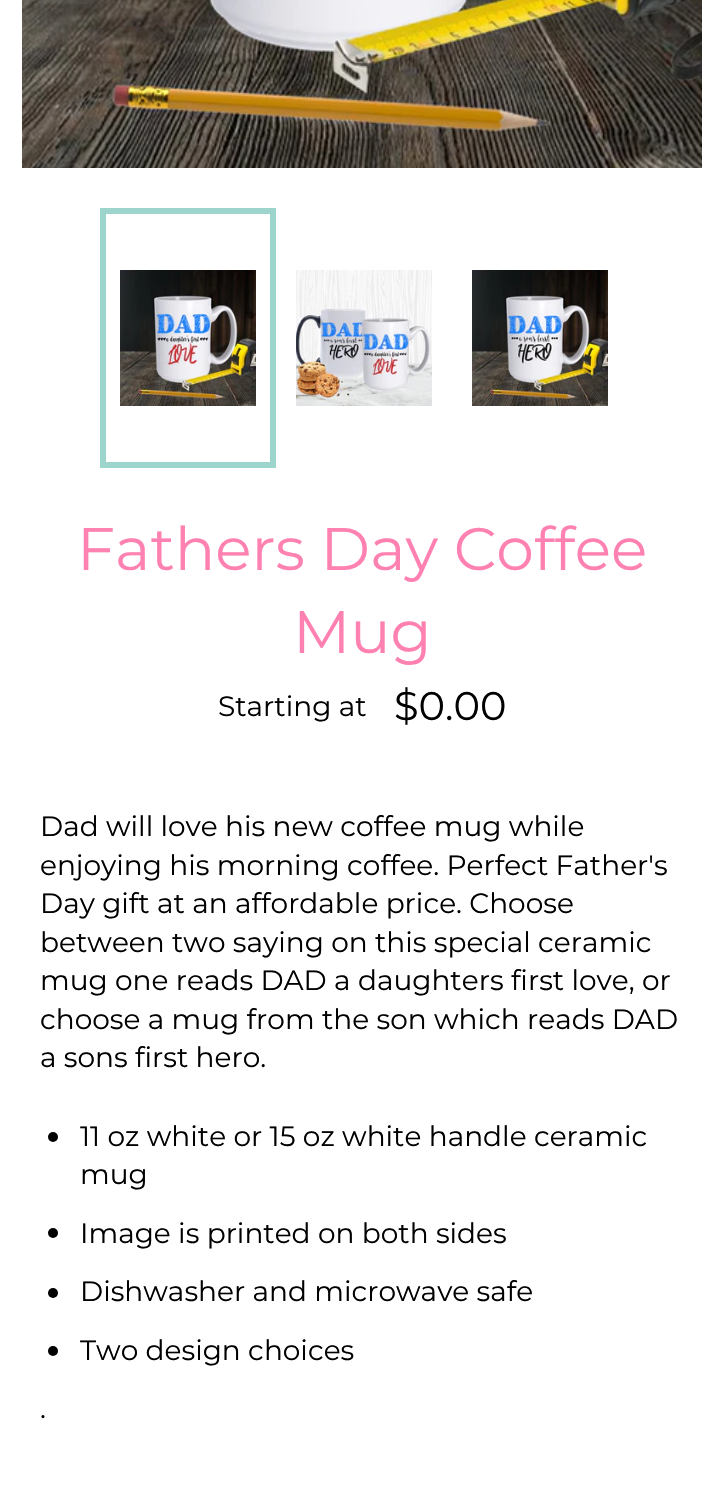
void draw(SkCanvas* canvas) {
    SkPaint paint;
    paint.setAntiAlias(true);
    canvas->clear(0xFFFFFFFF);
    canvas->drawImageRect(SkImages::DeferredFromEncodedData(SkData::MakeFromFileName("img1.png")), SkRect::MakeXYWH(22, 0, 680, 168), SkSamplingOptions());
    canvas->drawImageRect(SkImages::DeferredFromEncodedData(SkData::MakeFromFileName("img2.png")), SkRect::MakeXYWH(120, 270, 136, 136), SkSamplingOptions());
    paint.setStyle(SkPaint::kStroke_Style);
    paint.setStrokeWidth(6);
    paint.setColor(0xFF9DD4CC);
    canvas->drawRect(SkRect::MakeXYWH(103, 211, 170, 254), paint);
    canvas->drawImageRect(SkImages::DeferredFromEncodedData(SkData::MakeFromFileName("img3.png")), SkRect::MakeXYWH(296, 270, 136, 136), SkSamplingOptions());
    canvas->drawImageRect(SkImages::DeferredFromEncodedData(SkData::MakeFromFileName("img4.png")), SkRect::MakeXYWH(472, 270, 136, 136), SkSamplingOptions());
    SkFont font1(fontMgr->matchFamilyStyle("Montserrat", SkFontStyle::Normal()), 60);
    font1.setSubpixel(true);
    paint.setStyle(SkPaint::kFill_Style);
    paint.setColor(0xFFFE81B1);
    canvas->drawString("Fathers Day Coffee", 77, 570, font1, paint);
    canvas->drawString("Mug", 293, 653, font1, paint);
    SkFont font2(fontMgr->matchFamilyStyle("Montserrat", SkFontStyle::Normal()), 28);
    font2.setSubpixel(true);
    paint.setColor(0xFF000000);
    canvas->drawString("Starting at", 218, 716, font2, paint);
    SkFont font3(fontMgr->matchFamilyStyle("Montserrat", SkFontStyle::Normal()), 40);
    font3.setSubpixel(true);
    canvas->drawString("$0.00", 394, 720, font3, paint);
    canvas->drawString("Dad will love his new coffee mug while", 40, 836, font2, paint);
    canvas->drawString("enjoying his morning coffee. Perfect Father's", 40, 875, font2, paint);
    canvas->drawString("Day gift at an affordable price. Choose", 40, 913, font2, paint);
    canvas->drawString("between two saying on this special ceramic", 40, 952, font2, paint);
    canvas->drawString("mug one reads DAD a daughters first love, or", 40, 990, font2, paint);
    canvas->drawString("choose a mug from the son which reads DAD", 40, 1029, font2, paint);
    canvas->drawString("a sons first hero.", 40, 1067, font2, paint);
    canvas->drawCircle(53, 1137, 5, paint);
    canvas->drawString("11 oz white or 15 oz white handle ceramic", 80, 1146, font2, paint);
    canvas->drawString("mug", 80, 1184, font2, paint);
    canvas->drawCircle(53, 1233, 5, paint);
    canvas->drawString("Image is printed on both sides", 80, 1243, font2, paint);
    canvas->drawCircle(53, 1293, 5, paint);
    canvas->drawString("Dishwasher and microwave safe", 80, 1301, font2, paint);
    canvas->drawCircle(53, 1351, 5, paint);
    canvas->drawString("Two design choices", 80, 1360, font2, paint);
    canvas->drawString(".", 40, 1418, font2, paint);
}
